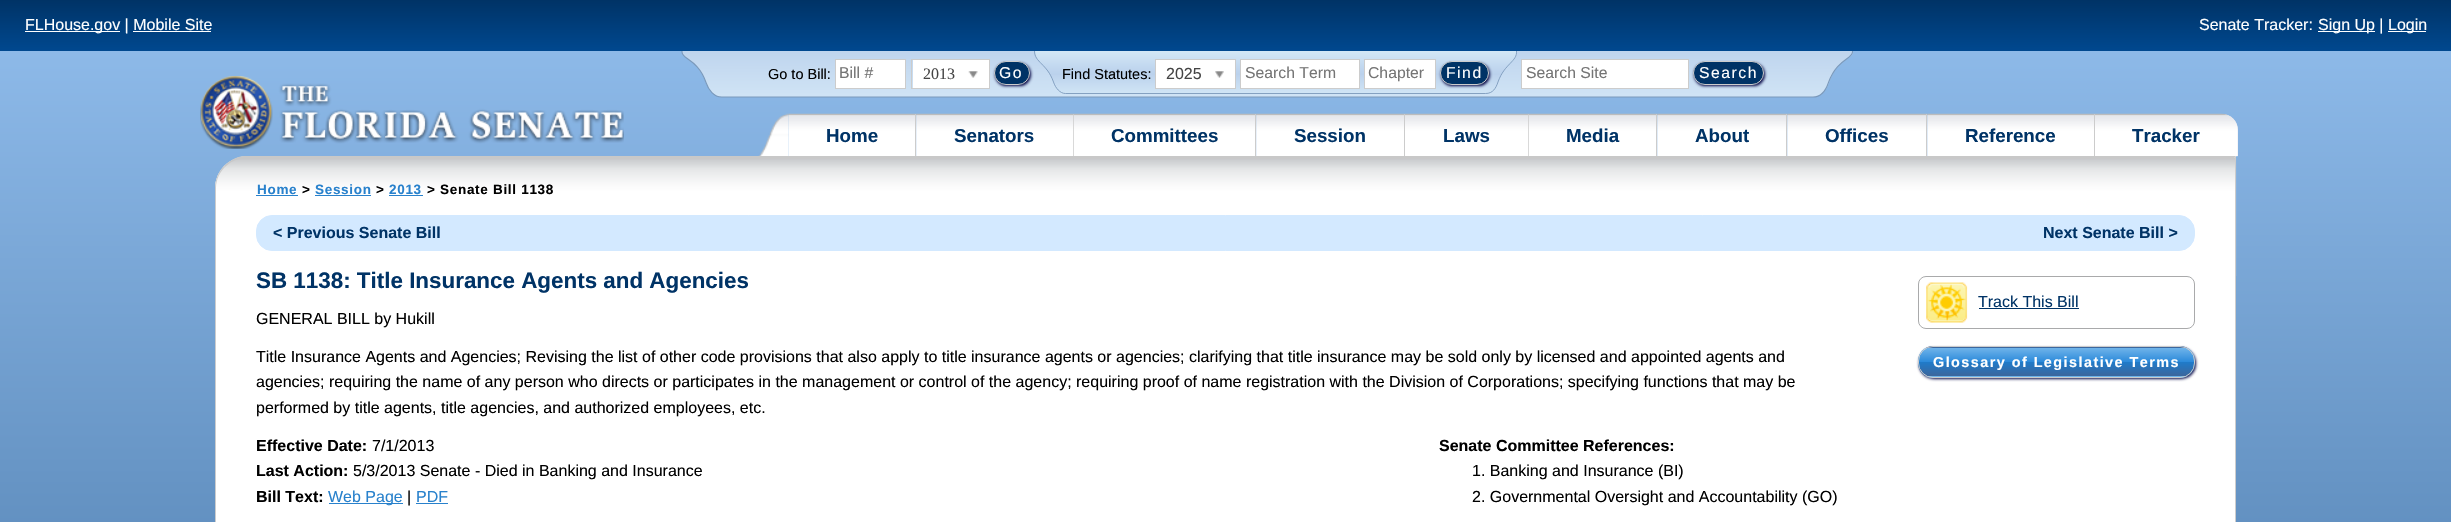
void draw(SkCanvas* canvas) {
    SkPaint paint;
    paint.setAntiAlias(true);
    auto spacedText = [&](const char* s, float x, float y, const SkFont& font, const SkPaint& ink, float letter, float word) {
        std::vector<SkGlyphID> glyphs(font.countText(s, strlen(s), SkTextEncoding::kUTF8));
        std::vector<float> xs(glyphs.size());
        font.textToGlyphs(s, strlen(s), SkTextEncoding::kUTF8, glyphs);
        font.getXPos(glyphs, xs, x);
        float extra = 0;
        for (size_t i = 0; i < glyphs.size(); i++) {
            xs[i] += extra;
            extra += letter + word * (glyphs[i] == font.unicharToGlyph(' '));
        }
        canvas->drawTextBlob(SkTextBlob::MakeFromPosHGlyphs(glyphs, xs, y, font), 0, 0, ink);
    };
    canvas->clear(0xFFFFFFFF);
    {
        const SkColor colors[] = {0xFF90BCEB, 0xFF003366};
        const float stops[] = {0.01f, 1};
        const SkPoint ends[] = {{1226, 0}, {1226, 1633}};
        paint.setShader(SkGradientShader::MakeLinear(ends, colors, stops, 2, SkTileMode::kClamp));
        paint.setAlpha(255);
    }
    canvas->drawRect(SkRect::MakeXYWH(0, 51, 2451, 471), paint);
    {
        const SkColor colors[] = {0xFF003366, 0xFF00488F};
        const float stops[] = {0, 1};
        const SkPoint ends[] = {{1226, 0}, {1226, 51}};
        paint.setShader(SkGradientShader::MakeLinear(ends, colors, stops, 2, SkTileMode::kClamp));
        paint.setAlpha(255);
    }
    canvas->drawRect(SkRect::MakeXYWH(0, 0, 2451, 51), paint);
    paint.setShader(nullptr);
    paint.setColor(0xFFFFFFFF);
    canvas->drawRect(SkRect::MakeXYWH(25, 31, 95, 1), paint);
    SkFont font1(fontMgr->matchFamilyStyle("Liberation Sans", SkFontStyle::Normal()), 16);
    font1.setSubpixel(true);
    canvas->drawString("FLHouse.gov | Mobile Site", 25, 30, font1, paint);
    canvas->drawRect(SkRect::MakeXYWH(133, 31, 78, 1), paint);
    canvas->drawString("Senate Tracker:", 2199, 30, font1, paint);
    canvas->drawRect(SkRect::MakeXYWH(2318, 31, 57, 1), paint);
    canvas->drawString("Sign Up |", 2318, 30, font1, paint);
    canvas->drawRect(SkRect::MakeXYWH(2388, 31, 38, 1), paint);
    canvas->drawString("Login", 2388, 30, font1, paint);
    canvas->save();
    canvas->clipRect(SkRect::MakeXYWH(679, 51, 1175, 55));
    {
        const SkColor colors[] = {0xFFD3E7F6, 0xFFBAD1EC, 0xFFBDD3ED, 0xFFD0E4F5};
        const float stops[] = {0, 0.55f, 0.59f, 1};
        const SkPoint ends[] = {{1267, -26}, {1267, 97}};
        paint.setShader(SkGradientShader::MakeLinear(ends, colors, stops, 4, SkTileMode::kClamp));
        paint.setAlpha(255);
    }
    canvas->drawPath(SkPathBuilder().moveTo(682, -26).lineTo(682, 52).cubicTo(682, 59, 698, 59, 706, 83).cubicTo(709, 90, 714, 97, 722, 97).lineTo(1813, 97).cubicTo(1822, 97, 1826, 90, 1829, 83).cubicTo(1837, 59, 1853, 59, 1853, 52).lineTo(1853, -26).detach(), paint);
    paint.setStyle(SkPaint::kStroke_Style);
    paint.setStrokeWidth(1.1f);
    paint.setShader(nullptr);
    paint.setColor(0xFF7A99BB);
    canvas->drawPath(SkPathBuilder().moveTo(682, -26.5f).lineTo(682, 52).cubicTo(682, 59.5f, 698, 59, 706, 82.5f).cubicTo(708.5f, 90, 714, 97, 721.5f, 97).lineTo(1813, 97).cubicTo(1822, 97, 1826, 90, 1828.5f, 82.5f).cubicTo(1837, 59, 1852.5f, 59, 1852.5f, 52).lineTo(1852.5f, -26.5f).detach(), paint);
    canvas->restore();
    SkFont font2(fontMgr->matchFamilyStyle("Liberation Sans", SkFontStyle::Normal()), 14.5f);
    font2.setSubpixel(true);
    paint.setStyle(SkPaint::kFill_Style);
    paint.setColor(0xFF000000);
    canvas->drawString("Go to Bill:", 768, 79, font2, paint);
    paint.setColor(0xFFFFFFFF);
    canvas->drawRect(SkRect::MakeXYWH(835.5f, 59.5f, 70, 29), paint);
    paint.setStyle(SkPaint::kStroke_Style);
    paint.setStrokeWidth(1);
    paint.setColor(0xFFCCCCCC);
    canvas->drawRect(SkRect::MakeXYWH(835.5f, 59.5f, 70, 29), paint);
    SkFont font3(fontMgr->matchFamilyStyle("Liberation Sans", SkFontStyle::Normal()), 15.75f);
    font3.setSubpixel(true);
    paint.setStyle(SkPaint::kFill_Style);
    paint.setColor(0xFF757575);
    canvas->drawString("Bill #", 839, 78, font3, paint);
    paint.setColor(0xFFFFFFFF);
    canvas->drawRect(SkRect::MakeXYWH(913, 60, 76, 28), paint);
    {
        const SkColor colors[] = {0xFFD3E7F6, 0xFFBAD1EC, 0xFFBDD3ED, 0xFFD0E4F5};
        const float stops[] = {0, 0.55f, 0.59f, 1};
        const SkPoint ends[] = {{1276, 51}, {1276, 93}};
        paint.setShader(SkGradientShader::MakeLinear(ends, colors, stops, 4, SkTileMode::kClamp));
        paint.setAlpha(255);
    }
    canvas->drawPath(SkPathBuilder().moveTo(1517, 51).cubicTo(1518, 62, 1504, 64, 1498, 82).cubicTo(1496, 88, 1493, 93, 1486, 93).lineTo(1066, 93).cubicTo(1060, 93, 1056, 88, 1054, 82).cubicTo(1047, 64, 1035, 63, 1035, 51).detach(), paint);
    paint.setStyle(SkPaint::kStroke_Style);
    paint.setStrokeWidth(0.9f);
    paint.setShader(nullptr);
    paint.setColor(0xFF7A99BB);
    canvas->drawPath(SkPathBuilder().moveTo(1516.5f, 51).cubicTo(1517.5f, 61.5f, 1504.5f, 63.5f, 1498, 82).cubicTo(1496, 88, 1493, 93.5f, 1485.5f, 93.5f).lineTo(1065.5f, 93.5f).cubicTo(1060, 93.5f, 1055.5f, 88, 1053.5f, 82).cubicTo(1047, 63.5f, 1034.5f, 62.5f, 1034.5f, 51).detach(), paint);
    paint.setStyle(SkPaint::kFill_Style);
    paint.setColor(0xFF040443);
    paint.setMaskFilter(SkMaskFilter::MakeBlur(kNormal_SkBlurStyle, 1.5f));
    canvas->drawRoundRect(SkRect::MakeXYWH(995, 63, 36, 23), 11.5f, 11.5f, paint);
    paint.setMaskFilter(nullptr);
    paint.setStyle(SkPaint::kStroke_Style);
    paint.setStrokeWidth(1);
    paint.setColor(0xFFCCCCCC);
    canvas->drawRect(SkRect::MakeXYWH(911.5f, 59.5f, 78, 29), paint);
    SkFont font4(fontMgr->matchFamilyStyle("Liberation Serif", SkFontStyle::Normal()), 16);
    font4.setSubpixel(true);
    paint.setStyle(SkPaint::kFill_Style);
    paint.setColor(0xFF444444);
    canvas->drawString("2013", 923, 79, font4, paint);
    canvas->drawImageRect(SkImages::DeferredFromEncodedData(SkData::MakeFromFileName("img1.png")), SkRect::MakeXYWH(968, 71, 10, 7), SkSamplingOptions());
    paint.setColor(0xFF003366);
    canvas->drawRoundRect(SkRect::MakeXYWH(994.5f, 61.5f, 35, 23), 11.5f, 11.5f, paint);
    paint.setStyle(SkPaint::kStroke_Style);
    paint.setColor(0xFFCCCCCC);
    canvas->drawRoundRect(SkRect::MakeXYWH(994.5f, 61.5f, 35, 23), 11.5f, 11.5f, paint);
    paint.setStyle(SkPaint::kFill_Style);
    paint.setColor(0xFFFFFFFF);
    spacedText("Go", 999, 78, font3, paint, 1.5f, 0);
    paint.setColor(0xFF000000);
    canvas->drawString("Find Statutes:", 1062, 79, font2, paint);
    paint.setColor(0xFFFFFFFF);
    canvas->drawRect(SkRect::MakeXYWH(1155.5f, 59.5f, 80, 29), paint);
    paint.setStyle(SkPaint::kStroke_Style);
    paint.setColor(0xFFCCCCCC);
    canvas->drawRect(SkRect::MakeXYWH(1155.5f, 59.5f, 80, 29), paint);
    paint.setStyle(SkPaint::kFill_Style);
    paint.setColor(0xFF444444);
    canvas->drawString("2025", 1166, 79, font1, paint);
    canvas->drawImageRect(SkImages::DeferredFromEncodedData(SkData::MakeFromFileName("img2.png")), SkRect::MakeXYWH(1215, 71, 9, 7), SkSamplingOptions());
    paint.setColor(0xFFFFFFFF);
    canvas->drawRect(SkRect::MakeXYWH(1240.5f, 59.5f, 119, 29), paint);
    paint.setStyle(SkPaint::kStroke_Style);
    paint.setColor(0xFFCCCCCC);
    canvas->drawRect(SkRect::MakeXYWH(1240.5f, 59.5f, 119, 29), paint);
    paint.setStyle(SkPaint::kFill_Style);
    paint.setColor(0xFF757575);
    canvas->drawString("Search Term", 1245, 78, font3, paint);
    paint.setColor(0xFFFFFFFF);
    canvas->drawRect(SkRect::MakeXYWH(1364.5f, 59.5f, 71, 29), paint);
    paint.setStyle(SkPaint::kStroke_Style);
    paint.setColor(0xFFCCCCCC);
    canvas->drawRect(SkRect::MakeXYWH(1364.5f, 59.5f, 71, 29), paint);
    paint.setStyle(SkPaint::kFill_Style);
    paint.setColor(0xFF757575);
    canvas->drawString("Chapter", 1368, 78, font3, paint);
    paint.setColor(0xFF040443);
    paint.setMaskFilter(SkMaskFilter::MakeBlur(kNormal_SkBlurStyle, 1.5f));
    canvas->drawRoundRect(SkRect::MakeXYWH(1441, 63, 49, 23), 11.5f, 11.5f, paint);
    paint.setMaskFilter(nullptr);
    paint.setColor(0xFF003366);
    canvas->drawRoundRect(SkRect::MakeXYWH(1440.5f, 61.5f, 48, 23), 11.5f, 11.5f, paint);
    paint.setStyle(SkPaint::kStroke_Style);
    paint.setColor(0xFFCCCCCC);
    canvas->drawRoundRect(SkRect::MakeXYWH(1440.5f, 61.5f, 48, 23), 11.5f, 11.5f, paint);
    paint.setStyle(SkPaint::kFill_Style);
    paint.setColor(0xFFFFFFFF);
    spacedText("Find", 1446, 78, font3, paint, 1.5f, 0);
    canvas->drawRect(SkRect::MakeXYWH(1521.5f, 59.5f, 167, 29), paint);
    paint.setStyle(SkPaint::kStroke_Style);
    paint.setColor(0xFFCCCCCC);
    canvas->drawRect(SkRect::MakeXYWH(1521.5f, 59.5f, 167, 29), paint);
    paint.setStyle(SkPaint::kFill_Style);
    paint.setColor(0xFF757575);
    canvas->drawString("Search Site", 1526, 78, font3, paint);
    paint.setColor(0xFF040443);
    paint.setMaskFilter(SkMaskFilter::MakeBlur(kNormal_SkBlurStyle, 1.5f));
    canvas->drawRoundRect(SkRect::MakeXYWH(1694, 63, 71, 23), 11.5f, 11.5f, paint);
    paint.setMaskFilter(nullptr);
    paint.setColor(0xFF003366);
    canvas->drawRoundRect(SkRect::MakeXYWH(1693.5f, 61.5f, 70, 23), 11.5f, 11.5f, paint);
    paint.setStyle(SkPaint::kStroke_Style);
    paint.setColor(0xFFCCCCCC);
    canvas->drawRoundRect(SkRect::MakeXYWH(1693.5f, 61.5f, 70, 23), 11.5f, 11.5f, paint);
    paint.setStyle(SkPaint::kFill_Style);
    paint.setColor(0xFFFFFFFF);
    spacedText("Search", 1699, 78, font3, paint, 1.5f, 0);
    canvas->drawImageRect(SkImages::DeferredFromEncodedData(SkData::MakeFromFileName("img3.png")), SkRect::MakeXYWH(200, 76, 424, 73), SkSamplingOptions());
    canvas->drawImageRect(SkImages::DeferredFromEncodedData(SkData::MakeFromFileName("img4.png")), SkRect::MakeXYWH(758, 113, 31, 43), SkSamplingOptions());
    canvas->drawImageRect(SkImages::DeferredFromEncodedData(SkData::MakeFromFileName("img5.png")), SkRect::MakeXYWH(788, 113, 129, 43), SkSamplingOptions());
    paint.setColor(0xFFCCCCCC);
    canvas->drawRect(SkRect::MakeXYWH(915, 114, 1, 42), paint);
    SkFont font5(fontMgr->matchFamilyStyle("Liberation Sans", SkFontStyle::Bold()), 18.75f);
    font5.setSubpixel(true);
    paint.setColor(0xFF003366);
    canvas->drawString("Home", 826, 142, font5, paint);
    canvas->drawImageRect(SkImages::DeferredFromEncodedData(SkData::MakeFromFileName("img6.png")), SkRect::MakeXYWH(916, 113, 158, 43), SkSamplingOptions());
    paint.setColor(0xFFCCCCCC);
    canvas->drawRect(SkRect::MakeXYWH(1073, 114, 1, 42), paint);
    paint.setColor(0xFF003366);
    canvas->drawString("Senators", 954, 142, font5, paint);
    canvas->drawImageRect(SkImages::DeferredFromEncodedData(SkData::MakeFromFileName("img7.png")), SkRect::MakeXYWH(1073, 113, 184, 43), SkSamplingOptions());
    paint.setColor(0xFFCCCCCC);
    canvas->drawRect(SkRect::MakeXYWH(1255, 114, 1, 42), paint);
    paint.setColor(0xFF003366);
    canvas->drawString("Committees", 1111, 142, font5, paint);
    canvas->drawImageRect(SkImages::DeferredFromEncodedData(SkData::MakeFromFileName("img8.png")), SkRect::MakeXYWH(1256, 113, 149, 43), SkSamplingOptions());
    paint.setColor(0xFFCCCCCC);
    canvas->drawRect(SkRect::MakeXYWH(1404, 114, 1, 42), paint);
    paint.setColor(0xFF003366);
    canvas->drawString("Session", 1294, 142, font5, paint);
    canvas->drawImageRect(SkImages::DeferredFromEncodedData(SkData::MakeFromFileName("img9.png")), SkRect::MakeXYWH(1405, 113, 124, 43), SkSamplingOptions());
    paint.setColor(0xFFCCCCCC);
    canvas->drawRect(SkRect::MakeXYWH(1528, 114, 1, 42), paint);
    paint.setColor(0xFF003366);
    canvas->drawString("Laws", 1443, 142, font5, paint);
    canvas->drawImageRect(SkImages::DeferredFromEncodedData(SkData::MakeFromFileName("img10.png")), SkRect::MakeXYWH(1528, 113, 130, 43), SkSamplingOptions());
    paint.setColor(0xFFCCCCCC);
    canvas->drawRect(SkRect::MakeXYWH(1656, 114, 1, 42), paint);
    paint.setColor(0xFF003366);
    canvas->drawString("Media", 1566, 142, font5, paint);
    canvas->drawImageRect(SkImages::DeferredFromEncodedData(SkData::MakeFromFileName("img11.png")), SkRect::MakeXYWH(1657, 113, 131, 43), SkSamplingOptions());
    paint.setColor(0xFFCCCCCC);
    canvas->drawRect(SkRect::MakeXYWH(1786, 114, 1, 42), paint);
    paint.setColor(0xFF003366);
    canvas->drawString("About", 1695, 142, font5, paint);
    canvas->drawImageRect(SkImages::DeferredFromEncodedData(SkData::MakeFromFileName("img12.png")), SkRect::MakeXYWH(1787, 113, 141, 43), SkSamplingOptions());
    paint.setColor(0xFFCCCCCC);
    canvas->drawRect(SkRect::MakeXYWH(1926, 114, 1, 42), paint);
    paint.setColor(0xFF003366);
    canvas->drawString("Offices", 1825, 142, font5, paint);
    canvas->drawImageRect(SkImages::DeferredFromEncodedData(SkData::MakeFromFileName("img13.png")), SkRect::MakeXYWH(1927, 113, 168, 43), SkSamplingOptions());
    paint.setColor(0xFFCCCCCC);
    canvas->drawRect(SkRect::MakeXYWH(2094, 114, 1, 42), paint);
    paint.setColor(0xFF003366);
    canvas->drawString("Reference", 1965, 142, font5, paint);
    paint.setColor(0xFFEBEBF0);
    canvas->drawPath(SkPathBuilder().moveTo(2095, 114).lineTo(2222, 114).cubicTo(2231, 114, 2238, 121, 2238, 130).lineTo(2238, 156).lineTo(2095, 156).close().detach(), paint);
    canvas->drawImageRect(SkImages::DeferredFromEncodedData(SkData::MakeFromFileName("img14.png")), SkRect::MakeXYWH(2095, 113, 143, 44), SkSamplingOptions());
    paint.setColor(0xFF003366);
    canvas->drawString("Tracker", 2132, 142, font5, paint);
    paint.setColor(0xFFFFFFFF);
    canvas->drawPath(SkPathBuilder().moveTo(248, 156).lineTo(2236, 156).lineTo(2236, 522).cubicTo(2236, 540, 2221, 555, 2203, 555).lineTo(248, 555).cubicTo(230, 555, 215, 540, 215, 522).lineTo(215, 189).cubicTo(215, 171, 230, 156, 248, 156).close().detach(), paint);
    canvas->drawImageRect(SkImages::DeferredFromEncodedData(SkData::MakeFromFileName("img15.png")), SkRect::MakeXYWH(215, 157, 2022, 119), SkSamplingOptions());
    paint.setColor(0xFFC8C8C8);
    canvas->drawPath(SkPathBuilder().moveTo(247, 158).cubicTo(239, 158, 231, 161, 225, 167).lineTo(224, 166).cubicTo(229, 161, 236, 157, 243, 156).lineTo(2236, 156).lineTo(2234, 158).close().detach(), paint);
    paint.setColor(0xFFCCCCCC);
    canvas->drawPath(SkPathBuilder().moveTo(2236, 156).lineTo(2236, 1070).cubicTo(2236, 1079, 2232, 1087, 2227, 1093).lineTo(2226, 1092).cubicTo(2231, 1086, 2235, 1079, 2235, 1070).lineTo(2235, 158).lineTo(2234, 158).close().detach(), paint);
    canvas->drawPath(SkPathBuilder().moveTo(215, 188).lineTo(215, 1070).cubicTo(215, 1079, 219, 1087, 225, 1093).lineTo(225, 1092).cubicTo(220, 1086, 216, 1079, 216, 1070).lineTo(216, 188).cubicTo(216, 179, 220, 172, 225, 167).lineTo(224, 166).cubicTo(219, 171, 215, 179, 215, 188).close().detach(), paint);
    SkFont font6(fontMgr->matchFamilyStyle("Liberation Sans", SkFontStyle::Bold()), 13.5f);
    font6.setSubpixel(true);
    paint.setColor(0xFF2881CC);
    spacedText("Home", 257, 194, font6, paint, 0.7f, 0);
    canvas->drawRect(SkRect::MakeXYWH(256, 195, 42, 1), paint);
    paint.setColor(0xFF000000);
    spacedText(">", 302, 194, font6, paint, 0.7f, 0);
    paint.setColor(0xFF2881CC);
    spacedText("Session", 315, 194, font6, paint, 0.7f, 0);
    canvas->drawRect(SkRect::MakeXYWH(315, 195, 56, 1), paint);
    paint.setColor(0xFF000000);
    spacedText(">", 376, 194, font6, paint, 0.7f, 0);
    paint.setColor(0xFF2881CC);
    spacedText("2013", 389, 194, font6, paint, 0.7f, 0);
    canvas->drawRect(SkRect::MakeXYWH(389, 195, 34, 1), paint);
    paint.setColor(0xFF000000);
    spacedText("> Senate Bill 1138", 427, 194, font6, paint, 0.7f, 0);
    paint.setColor(0xFFD3E9FF);
    canvas->drawRoundRect(SkRect::MakeXYWH(256.5f, 215.5f, 1938, 35), 15.5f, 15.5f, paint);
    paint.setStyle(SkPaint::kStroke_Style);
    canvas->drawRoundRect(SkRect::MakeXYWH(256.5f, 215.5f, 1938, 35), 15.5f, 15.5f, paint);
    SkFont font7(fontMgr->matchFamilyStyle("Liberation Sans", SkFontStyle::Bold()), 16);
    font7.setSubpixel(true);
    paint.setStyle(SkPaint::kFill_Style);
    paint.setColor(0xFF003366);
    canvas->drawString("< Previous Senate Bill", 273, 238, font7, paint);
    canvas->drawString("Next Senate Bill >", 2043, 238, font7, paint);
    SkFont font8(fontMgr->matchFamilyStyle("Liberation Sans", SkFontStyle::Bold()), 22.4f);
    font8.setSubpixel(true);
    canvas->drawString("SB 1138: Title Insurance Agents and Agencies", 256, 288, font8, paint);
    paint.setColor(0xFF000000);
    canvas->drawString("GENERAL BILL by Hukill", 256, 324, font1, paint);
    paint.setStyle(SkPaint::kStroke_Style);
    paint.setColor(0xFFA9AAAB);
    canvas->drawRoundRect(SkRect::MakeXYWH(1918.5f, 276.5f, 276, 52), 7.5f, 7.5f, paint);
    canvas->drawImageRect(SkImages::DeferredFromEncodedData(SkData::MakeFromFileName("img16.png")), SkRect::MakeXYWH(1926, 282, 42, 41), SkSamplingOptions());
    paint.setStyle(SkPaint::kFill_Style);
    paint.setColor(0xFF003366);
    canvas->drawString("Track This Bill", 1978, 307, font1, paint);
    canvas->drawRect(SkRect::MakeXYWH(1979, 308, 100, 1), paint);
    paint.setColor(0xFF040443);
    paint.setMaskFilter(SkMaskFilter::MakeBlur(kNormal_SkBlurStyle, 1.5f));
    canvas->drawRoundRect(SkRect::MakeXYWH(1919, 348, 277, 31), 15, 15, paint);
    paint.setMaskFilter(nullptr);
    canvas->save();
    canvas->clipPath(SkPathBuilder().moveTo(1933, 346).lineTo(2180, 346).cubicTo(2188.5f, 346, 2195, 352.5f, 2195, 361).lineTo(2195, 363).cubicTo(2195, 371.5f, 2188.5f, 378, 2180, 378).lineTo(1933, 378).cubicTo(1924.5f, 378, 1918, 371.5f, 1918, 363).lineTo(1918, 361).cubicTo(1918, 352.5f, 1924.5f, 346, 1933, 346).close().detach(), true);
    {
        const SkColor colors[] = {0xFF6FB4EA, 0xFF2B89DA, 0xFF1F7BCA, 0xFF3C669C};
        const float stops[] = {0, 0.5f, 0.5f, 1};
        const SkPoint ends[] = {{1919, 348}, {1919, 376}};
        paint.setShader(SkGradientShader::MakeLinear(ends, colors, stops, 4, SkTileMode::kClamp));
        paint.setAlpha(255);
    }
    canvas->drawRect(SkRect::MakeXYWH(1918, 348, 277, 28), paint);
    {
        const SkColor colors[] = {0xFF6FB4EA, 0xFF2B89DA, 0xFF1F7BCA, 0xFF3C669C};
        const float stops[] = {0, 0.5f, 0.5f, 1};
        const SkPoint ends[] = {{1919, 319}, {1919, 348}};
        paint.setShader(SkGradientShader::MakeLinear(ends, colors, stops, 4, SkTileMode::kClamp));
        paint.setAlpha(255);
    }
    canvas->drawRect(SkRect::MakeXYWH(1918, 346, 277, 2), paint);
    {
        const SkColor colors[] = {0xFF6FB4EA, 0xFF2B89DA, 0xFF1F7BCA, 0xFF3C669C};
        const float stops[] = {0, 0.5f, 0.5f, 1};
        const SkPoint ends[] = {{1919, 376}, {1919, 405}};
        paint.setShader(SkGradientShader::MakeLinear(ends, colors, stops, 4, SkTileMode::kClamp));
        paint.setAlpha(255);
    }
    canvas->drawRect(SkRect::MakeXYWH(1918, 376, 277, 2), paint);
    canvas->restore();
    paint.setStyle(SkPaint::kStroke_Style);
    paint.setShader(nullptr);
    paint.setColor(0xFFCCCCCC);
    canvas->drawRoundRect(SkRect::MakeXYWH(1918.5f, 346.5f, 276, 31), 14.5f, 14.5f, paint);
    SkFont font9(fontMgr->matchFamilyStyle("Liberation Sans", SkFontStyle::Bold()), 14.4f);
    font9.setSubpixel(true);
    paint.setStyle(SkPaint::kFill_Style);
    paint.setColor(0xFFFFFFFF);
    spacedText("Glossary of Legislative Terms", 1933, 367, font9, paint, 1.45f, 0);
    paint.setColor(0xFF000000);
    canvas->drawString("Title Insurance Agents and Agencies; Revising the list of other code provisions that also apply to title insurance agents or agencies; clarifying that title insurance may be sold only by licensed and appointed agents and", 256, 362, font1, paint);
    canvas->drawString("agencies; requiring the name of any person who directs or participates in the management or control of the agency; requiring proof of name registration with the Division of Corporations; specifying functions that may be", 256, 387, font1, paint);
    canvas->drawString("performed by title agents, title agencies, and authorized employees, etc.", 256, 413, font1, paint);
    canvas->drawString("Effective Date:", 256, 451, font7, paint);
    canvas->drawString("7/1/2013", 372, 451, font1, paint);
    canvas->drawString("Last Action:", 256, 476, font7, paint);
    canvas->drawString("5/3/2013 Senate - Died in Banking and Insurance", 353, 476, font1, paint);
    canvas->drawString("Bill Text:", 256, 502, font7, paint);
    paint.setColor(0xFF2881CC);
    canvas->drawRect(SkRect::MakeXYWH(329, 503, 74, 1), paint);
    canvas->drawString("Web Page", 328, 502, font1, paint);
    paint.setColor(0xFF000000);
    canvas->drawString("|", 407, 502, font1, paint);
    paint.setColor(0xFF2881CC);
    canvas->drawString("PDF", 416, 502, font1, paint);
    canvas->drawRect(SkRect::MakeXYWH(416, 503, 32, 1), paint);
    paint.setColor(0xFF000000);
    canvas->drawString("Senate Committee References:", 1439, 451, font7, paint);
    canvas->drawString("1. Banking and Insurance (BI)", 1472, 476, font1, paint);
    canvas->drawString("2. Governmental Oversight and Accountability (GO)", 1472, 502, font1, paint);
}
